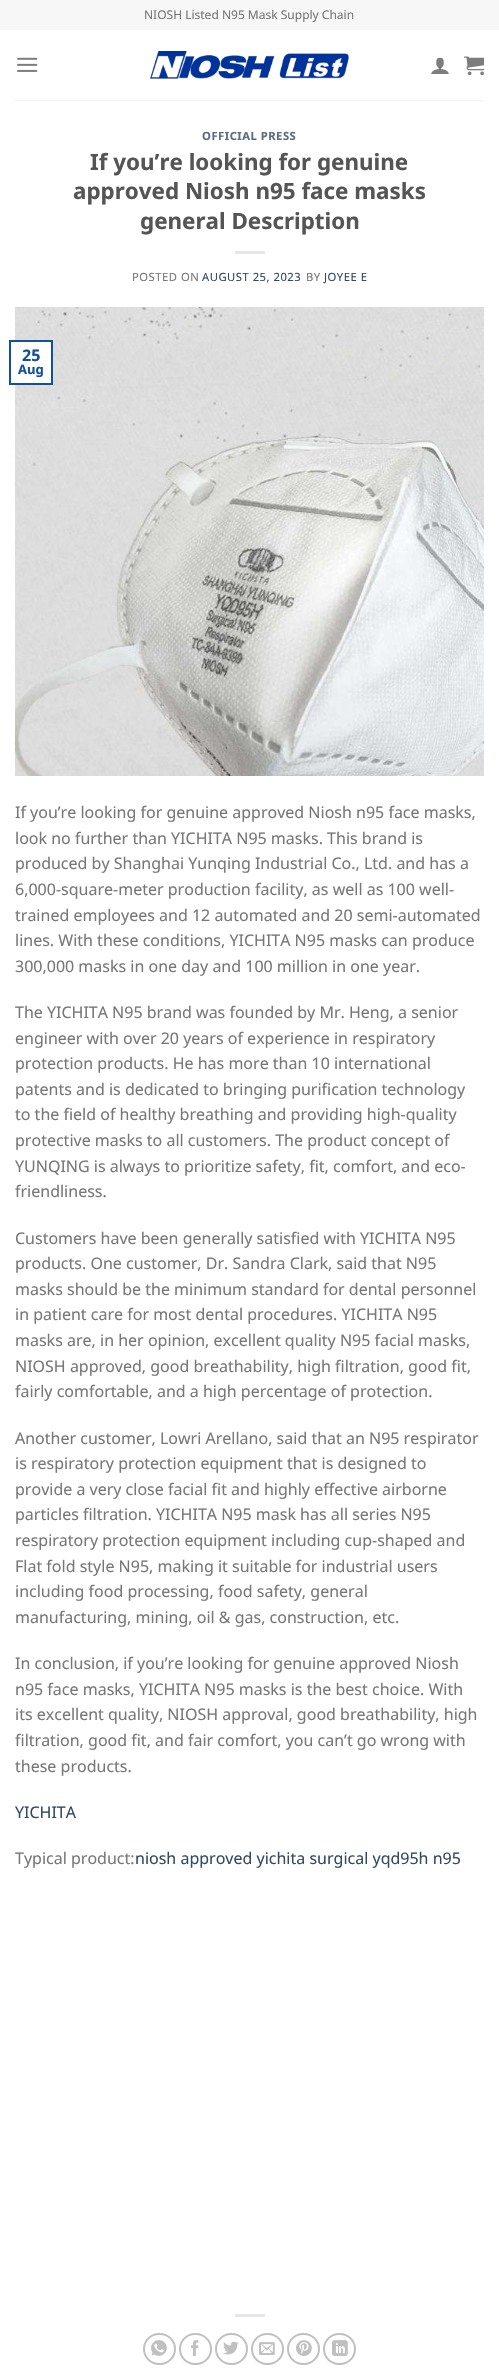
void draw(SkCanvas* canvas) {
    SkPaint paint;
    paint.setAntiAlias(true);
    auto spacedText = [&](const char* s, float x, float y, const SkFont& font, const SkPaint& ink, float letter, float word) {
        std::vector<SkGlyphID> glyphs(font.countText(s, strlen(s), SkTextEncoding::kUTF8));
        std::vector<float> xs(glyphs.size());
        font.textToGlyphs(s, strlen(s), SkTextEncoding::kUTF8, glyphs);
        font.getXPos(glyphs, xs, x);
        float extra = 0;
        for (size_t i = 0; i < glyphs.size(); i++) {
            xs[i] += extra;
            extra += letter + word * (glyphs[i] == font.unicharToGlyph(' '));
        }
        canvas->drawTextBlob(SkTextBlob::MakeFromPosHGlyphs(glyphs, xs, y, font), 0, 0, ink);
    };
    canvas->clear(0xFFFFFFFF);
    paint.setColor(0xFFF7F7F7);
    canvas->drawRect(SkRect::MakeXYWH(0, 0, 499, 30), paint);
    SkFont font1(fontMgr->matchFamilyStyle("Noto Sans", SkFontStyle::Normal()), 12);
    font1.setSubpixel(true);
    paint.setColor(0xFF777777);
    canvas->drawString("NIOSH Listed N95 Mask Supply Chain", 144, 19, font1, paint);
    canvas->drawImageRect(SkImages::DeferredFromEncodedData(SkData::MakeFromFileName("img1.png")), SkRect::MakeXYWH(17, 57, 21, 15), SkSamplingOptions());
    canvas->drawImageRect(SkImages::DeferredFromEncodedData(SkData::MakeFromFileName("img2.png")), SkRect::MakeXYWH(150, 51, 199, 28), SkSamplingOptions());
    canvas->drawImageRect(SkImages::DeferredFromEncodedData(SkData::MakeFromFileName("img3.png")), SkRect::MakeXYWH(431, 57, 18, 17), SkSamplingOptions());
    canvas->drawImageRect(SkImages::DeferredFromEncodedData(SkData::MakeFromFileName("img4.png")), SkRect::MakeXYWH(464, 56, 20, 20), SkSamplingOptions());
    paint.setColor(0xFFF1F1F1);
    canvas->drawRect(SkRect::MakeXYWH(15, 100, 469, 1), paint);
    SkFont font2(fontMgr->matchFamilyStyle("Noto Sans", SkFontStyle::Bold()), 11.25f);
    font2.setSubpixel(true);
    paint.setColor(0xFF5C6D81);
    spacedText("OFFICIAL PRESS", 202, 140, font2, paint, 0.5f, 0);
    SkFont font3(fontMgr->matchFamilyStyle("Noto Sans", SkFontStyle::Bold()), 22.4f);
    font3.setSubpixel(true);
    paint.setColor(0xFF555555);
    canvas->drawString("If you’re looking for genuine", 90, 170, font3, paint);
    canvas->drawString("approved Niosh n95 face masks", 73, 199, font3, paint);
    canvas->drawString("general Description", 140, 229, font3, paint);
    paint.setColor(0xFFE6E6E6);
    canvas->drawRect(SkRect::MakeXYWH(235, 251, 30, 3), paint);
    SkFont font4(fontMgr->matchFamilyStyle("Noto Sans", SkFontStyle::Normal()), 11.25f);
    font4.setSubpixel(true);
    paint.setColor(0xFF777777);
    spacedText("POSTED ON", 132, 281, font4, paint, 0.5f, 0);
    paint.setColor(0xFF334862);
    spacedText("AUGUST 25, 2023", 202, 281, font4, paint, 0.5f, 0);
    paint.setColor(0xFF777777);
    spacedText("BY", 306, 281, font4, paint, 0.5f, 0);
    paint.setColor(0xFF334862);
    spacedText("JOYEE E", 324, 281, font4, paint, 0.5f, 0);
    canvas->drawImageRect(SkImages::DeferredFromEncodedData(SkData::MakeFromFileName("img5.png")), SkRect::MakeXYWH(15, 307, 469, 469), SkSamplingOptions());
    paint.setColor(0xFFFFFFFF);
    canvas->drawRect(SkRect::MakeXYWH(15, 342, 36, 41), paint);
    paint.setStyle(SkPaint::kStroke_Style);
    paint.setStrokeWidth(2);
    paint.setColor(0xFF11519B);
    canvas->drawRect(SkRect::MakeXYWH(10, 341, 42, 43), paint);
    SkFont font5(fontMgr->matchFamilyStyle("Noto Sans", SkFontStyle::Bold()), 16);
    font5.setSubpixel(true);
    paint.setStyle(SkPaint::kFill_Style);
    canvas->drawString("25", 22, 361, font5, paint);
    SkFont font6(fontMgr->matchFamilyStyle("Noto Sans", SkFontStyle::Bold()), 13);
    font6.setSubpixel(true);
    canvas->drawString("Aug", 18, 374, font6, paint);
    SkFont font7(fontMgr->matchFamilyStyle("Noto Sans", SkFontStyle::Normal()), 16);
    font7.setSubpixel(true);
    paint.setColor(0xFF777777);
    canvas->drawString("If you’re looking for genuine approved Niosh n95 face masks,", 15, 818, font7, paint);
    canvas->drawString("look no further than YICHITA N95 masks. This brand is", 15, 844, font7, paint);
    canvas->drawString("produced by Shanghai Yunqing Industrial Co., Ltd. and has a", 15, 869, font7, paint);
    canvas->drawString("6,000-square-meter production facility, as well as 100 well-", 15, 895, font7, paint);
    canvas->drawString("trained employees and 12 automated and 20 semi-automated", 15, 921, font7, paint);
    canvas->drawString("lines. With these conditions, YICHITA N95 masks can produce", 15, 946, font7, paint);
    canvas->drawString("300,000 masks in one day and 100 million in one year.", 15, 972, font7, paint);
    canvas->drawString("The YICHITA N95 brand was founded by Mr. Heng, a senior", 15, 1018, font7, paint);
    canvas->drawString("engineer with over 20 years of experience in respiratory", 15, 1044, font7, paint);
    canvas->drawString("protection products. He has more than 10 international", 15, 1069, font7, paint);
    canvas->drawString("patents and is dedicated to bringing purification technology", 15, 1095, font7, paint);
    canvas->drawString("to the field of healthy breathing and providing high-quality", 15, 1120, font7, paint);
    canvas->drawString("protective masks to all customers. The product concept of", 15, 1146, font7, paint);
    canvas->drawString("YUNQING is always to prioritize safety, fit, comfort, and eco-", 15, 1172, font7, paint);
    canvas->drawString("friendliness.", 15, 1197, font7, paint);
    canvas->drawString("Customers have been generally satisfied with YICHITA N95", 15, 1244, font7, paint);
    canvas->drawString("products. One customer, Dr. Sandra Clark, said that N95", 15, 1269, font7, paint);
    canvas->drawString("masks should be the minimum standard for dental personnel", 15, 1295, font7, paint);
    canvas->drawString("in patient care for most dental procedures. YICHITA N95", 15, 1320, font7, paint);
    canvas->drawString("masks are, in her opinion, excellent quality N95 facial masks,", 15, 1346, font7, paint);
    canvas->drawString("NIOSH approved, good breathability, high filtration, good fit,", 15, 1372, font7, paint);
    canvas->drawString("fairly comfortable, and a high percentage of protection.", 15, 1397, font7, paint);
    canvas->drawString("Another customer, Lowri Arellano, said that an N95 respirator", 15, 1444, font7, paint);
    canvas->drawString("is respiratory protection equipment that is designed to", 15, 1469, font7, paint);
    canvas->drawString("provide a very close facial fit and highly effective airborne", 15, 1495, font7, paint);
    canvas->drawString("particles filtration. YICHITA N95 mask has all series N95", 15, 1520, font7, paint);
    canvas->drawString("respiratory protection equipment including cup-shaped and", 15, 1546, font7, paint);
    canvas->drawString("Flat fold style N95, making it suitable for industrial users", 15, 1572, font7, paint);
    canvas->drawString("including food processing, food safety, general", 15, 1597, font7, paint);
    canvas->drawString("manufacturing, mining, oil & gas, construction, etc.", 15, 1623, font7, paint);
    canvas->drawString("In conclusion, if you’re looking for genuine approved Niosh", 15, 1669, font7, paint);
    canvas->drawString("n95 face masks, YICHITA N95 masks is the best choice. With", 15, 1695, font7, paint);
    canvas->drawString("its excellent quality, NIOSH approval, good breathability, high", 15, 1720, font7, paint);
    canvas->drawString("filtration, good fit, and fair comfort, you can’t go wrong with", 15, 1746, font7, paint);
    canvas->drawString("these products.", 15, 1772, font7, paint);
    paint.setColor(0xFF334862);
    canvas->drawString("YICHITA", 15, 1818, font7, paint);
    paint.setColor(0xFF777777);
    canvas->drawString("Typical product:", 15, 1864, font7, paint);
    paint.setColor(0xFF334862);
    canvas->drawString("niosh approved yichita surgical yqd95h n95", 135, 1864, font7, paint);
    paint.setColor(0xFFE6E6E6);
    canvas->drawRect(SkRect::MakeXYWH(235, 2314, 30, 3), paint);
    paint.setStyle(SkPaint::kStroke_Style);
    paint.setColor(0xFFC0C0C0);
    canvas->drawRoundRect(SkRect::MakeXYWH(144, 2334, 31, 30), 15, 15, paint);
    canvas->drawImageRect(SkImages::DeferredFromEncodedData(SkData::MakeFromFileName("img6.png")), SkRect::MakeXYWH(151, 2340, 16, 16), SkSamplingOptions());
    canvas->drawRoundRect(SkRect::MakeXYWH(180, 2334, 31, 30), 15, 15, paint);
    canvas->drawImageRect(SkImages::DeferredFromEncodedData(SkData::MakeFromFileName("img7.png")), SkRect::MakeXYWH(191, 2340, 8, 16), SkSamplingOptions());
    canvas->drawRoundRect(SkRect::MakeXYWH(216, 2334, 31, 30), 15, 15, paint);
    canvas->drawImageRect(SkImages::DeferredFromEncodedData(SkData::MakeFromFileName("img8.png")), SkRect::MakeXYWH(223, 2341, 16, 14), SkSamplingOptions());
    canvas->drawRoundRect(SkRect::MakeXYWH(252, 2334, 31, 30), 15, 15, paint);
    canvas->drawImageRect(SkImages::DeferredFromEncodedData(SkData::MakeFromFileName("img9.png")), SkRect::MakeXYWH(259, 2342, 16, 13), SkSamplingOptions());
    canvas->drawRoundRect(SkRect::MakeXYWH(288, 2334, 31, 30), 15, 15, paint);
    canvas->drawImageRect(SkImages::DeferredFromEncodedData(SkData::MakeFromFileName("img10.png")), SkRect::MakeXYWH(296, 2340, 16, 16), SkSamplingOptions());
    canvas->drawRoundRect(SkRect::MakeXYWH(324, 2334, 31, 30), 15, 15, paint);
    canvas->drawImageRect(SkImages::DeferredFromEncodedData(SkData::MakeFromFileName("img11.png")), SkRect::MakeXYWH(332, 2340, 16, 16), SkSamplingOptions());
}
